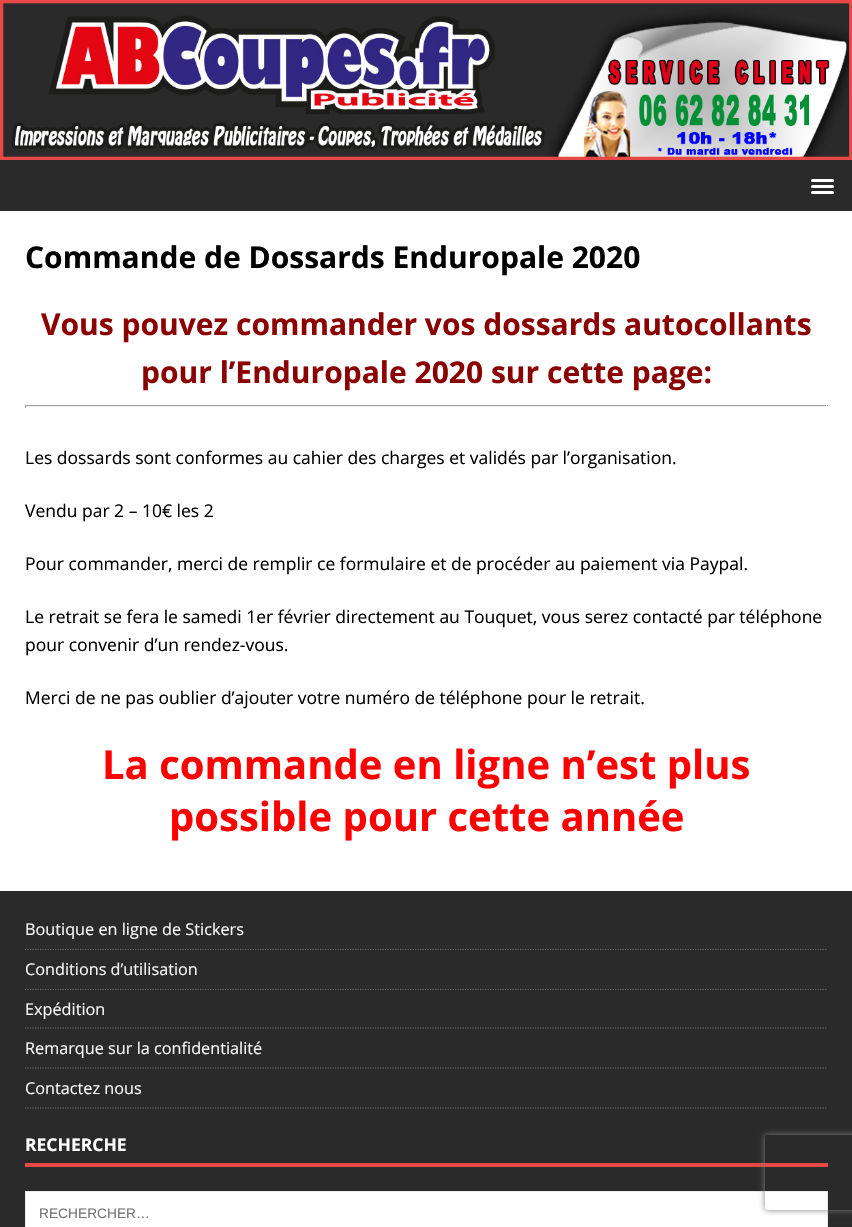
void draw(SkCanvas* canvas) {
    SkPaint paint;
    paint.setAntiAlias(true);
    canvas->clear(0xFF2A2A2A);
    canvas->drawImageRect(SkImages::DeferredFromEncodedData(SkData::MakeFromFileName("img1.png")), SkRect::MakeXYWH(0, 0, 852, 160), SkSamplingOptions());
    paint.setColor(0xFFFFFFFF);
    canvas->drawRoundRect(SkRect::MakeXYWH(811, 179, 23, 3), 1.5f, 1.5f, paint);
    canvas->drawRoundRect(SkRect::MakeXYWH(811, 185, 23, 3), 1.5f, 1.5f, paint);
    canvas->drawRoundRect(SkRect::MakeXYWH(811, 191, 23, 3), 1.5f, 1.5f, paint);
    canvas->drawRect(SkRect::MakeXYWH(0, 211, 852, 680), paint);
    SkFont font1(fontMgr->matchFamilyStyle("Open Sans", SkFontStyle::Bold()), 30);
    font1.setSubpixel(true);
    paint.setColor(0xFF000000);
    canvas->drawString("Commande de Dossards Enduropale 2020", 25, 268, font1, paint);
    paint.setColor(0xFF8B0000);
    canvas->drawString("Vous pouvez commander vos dossards autocollants", 41, 335, font1, paint);
    canvas->drawString("pour l’Enduropale 2020 sur cette page:", 141, 383, font1, paint);
    paint.setColor(0xFF9F9F9F);
    canvas->drawRect(SkRect::MakeXYWH(25, 405, 803, 1), paint);
    paint.setColor(0xFFEEEEEE);
    canvas->drawRect(SkRect::MakeXYWH(826, 405, 1, 3), paint);
    canvas->drawRect(SkRect::MakeXYWH(25, 406, 803, 1), paint);
    paint.setColor(0xFF9F9F9F);
    canvas->drawRect(SkRect::MakeXYWH(25, 405, 1, 3), paint);
    SkFont font2(fontMgr->matchFamilyStyle("Open Sans", SkFontStyle::Normal()), 17.5f);
    font2.setSubpixel(true);
    paint.setColor(0xFF000000);
    canvas->drawString("Les dossards sont conformes au cahier des charges et validés par l’organisation.", 25, 464, font2, paint);
    canvas->drawString("Vendu par 2 – 10€ les 2", 25, 517, font2, paint);
    canvas->drawString("Pour commander, merci de remplir ce formulaire et de procéder au paiement via Paypal.", 25, 570, font2, paint);
    canvas->drawString("Le retrait se fera le samedi 1er février directement au Touquet, vous serez contacté par téléphone", 25, 623, font2, paint);
    canvas->drawString("pour convenir d’un rendez-vous.", 25, 651, font2, paint);
    canvas->drawString("Merci de ne pas oublier d’ajouter votre numéro de téléphone pour le retrait.", 25, 704, font2, paint);
    SkFont font3(fontMgr->matchFamilyStyle("Open Sans", SkFontStyle::Bold()), 40);
    font3.setSubpixel(true);
    paint.setColor(0xFFFF0000);
    canvas->drawString("La commande en ligne n’est plus", 102, 779, font3, paint);
    canvas->drawString("possible pour cette année", 169, 831, font3, paint);
    paint.setStyle(SkPaint::kStroke_Style);
    paint.setStrokeWidth(1.2f);
    paint.setColor(0xFF6A6A6A);
    paint.setPathEffect(SkDashPathEffect::Make({{1.25f, 1.25f}}, 0));
    canvas->drawPath(SkPathBuilder().moveTo(25, 949.5f).lineTo(827.5f, 949.5f).detach(), paint);
    paint.setPathEffect(nullptr);
    SkFont font4(fontMgr->matchFamilyStyle("Open Sans", SkFontStyle::Normal()), 16.25f);
    font4.setSubpixel(true);
    paint.setStyle(SkPaint::kFill_Style);
    paint.setColor(0xFFF7F7F7);
    canvas->drawString("Boutique en ligne de Stickers", 25, 935, font4, paint);
    paint.setStyle(SkPaint::kStroke_Style);
    paint.setColor(0xFF6A6A6A);
    paint.setPathEffect(SkDashPathEffect::Make({{1.25f, 1.25f}}, 0));
    canvas->drawPath(SkPathBuilder().moveTo(25, 989.5f).lineTo(827.5f, 989.5f).detach(), paint);
    paint.setPathEffect(nullptr);
    paint.setStyle(SkPaint::kFill_Style);
    paint.setColor(0xFFF7F7F7);
    canvas->drawString("Conditions d’utilisation", 25, 975, font4, paint);
    paint.setStyle(SkPaint::kStroke_Style);
    paint.setColor(0xFF6A6A6A);
    paint.setPathEffect(SkDashPathEffect::Make({{1.25f, 1.25f}}, 0));
    canvas->drawPath(SkPathBuilder().moveTo(25, 1028).lineTo(827.5f, 1028).detach(), paint);
    paint.setPathEffect(nullptr);
    paint.setStyle(SkPaint::kFill_Style);
    paint.setColor(0xFFF7F7F7);
    canvas->drawString("Expédition", 25, 1015, font4, paint);
    paint.setStyle(SkPaint::kStroke_Style);
    paint.setColor(0xFF6A6A6A);
    paint.setPathEffect(SkDashPathEffect::Make({{1.25f, 1.25f}}, 0));
    canvas->drawPath(SkPathBuilder().moveTo(25, 1068).lineTo(827.5f, 1068).detach(), paint);
    paint.setPathEffect(nullptr);
    paint.setStyle(SkPaint::kFill_Style);
    paint.setColor(0xFFF7F7F7);
    canvas->drawString("Remarque sur la confidentialité", 25, 1054, font4, paint);
    paint.setStyle(SkPaint::kStroke_Style);
    paint.setColor(0xFF6A6A6A);
    paint.setPathEffect(SkDashPathEffect::Make({{1.25f, 1.25f}}, 0));
    canvas->drawPath(SkPathBuilder().moveTo(25, 1108).lineTo(827.5f, 1108).detach(), paint);
    paint.setPathEffect(nullptr);
    paint.setStyle(SkPaint::kFill_Style);
    paint.setColor(0xFFF7F7F7);
    canvas->drawString("Contactez nous", 25, 1094, font4, paint);
    paint.setColor(0xFFE64946);
    canvas->drawRect(SkRect::MakeXYWH(25, 1163, 803, 4), paint);
    SkFont font5(fontMgr->matchFamilyStyle("Open Sans", SkFontStyle::Bold()), 17.5f);
    font5.setSubpixel(true);
    paint.setColor(0xFFFFFFFF);
    canvas->drawString("RECHERCHE", 25, 1151, font5, paint);
    canvas->drawRect(SkRect::MakeXYWH(25.5f, 1191.5f, 802, 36), paint);
    paint.setStyle(SkPaint::kStroke_Style);
    paint.setStrokeWidth(1);
    paint.setColor(0xFFEBEBEB);
    canvas->drawRect(SkRect::MakeXYWH(25.5f, 1191.5f, 802, 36), paint);
    SkFont font6(fontMgr->matchFamilyStyle("Liberation Sans", SkFontStyle::Normal()), 13.75f);
    font6.setSubpixel(true);
    paint.setStyle(SkPaint::kFill_Style);
    paint.setColor(0xFF757575);
    canvas->drawString("RECHERCHER…", 39, 1218, font6, paint);
    canvas->save();
    canvas->clipPath(SkPathBuilder(SkPathFillType::kEvenOdd).moveTo(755, 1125).lineTo(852, 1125).lineTo(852, 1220).lineTo(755, 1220).close().moveTo(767.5f, 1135).lineTo(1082.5f, 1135).cubicTo(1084, 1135, 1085, 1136, 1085, 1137.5f).lineTo(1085, 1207.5f).cubicTo(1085, 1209, 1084, 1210, 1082.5f, 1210).lineTo(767.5f, 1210).cubicTo(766, 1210, 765, 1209, 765, 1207.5f).lineTo(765, 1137.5f).cubicTo(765, 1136, 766, 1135, 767.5f, 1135).close().detach(), true);
    paint.setColor(0xFF808080);
    paint.setMaskFilter(SkMaskFilter::MakeBlur(kNormal_SkBlurStyle, 3));
    canvas->drawRoundRect(SkRect::MakeXYWH(765, 1135, 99, 75), 2.5f, 2.5f, paint);
    paint.setMaskFilter(nullptr);
    canvas->restore();
}
